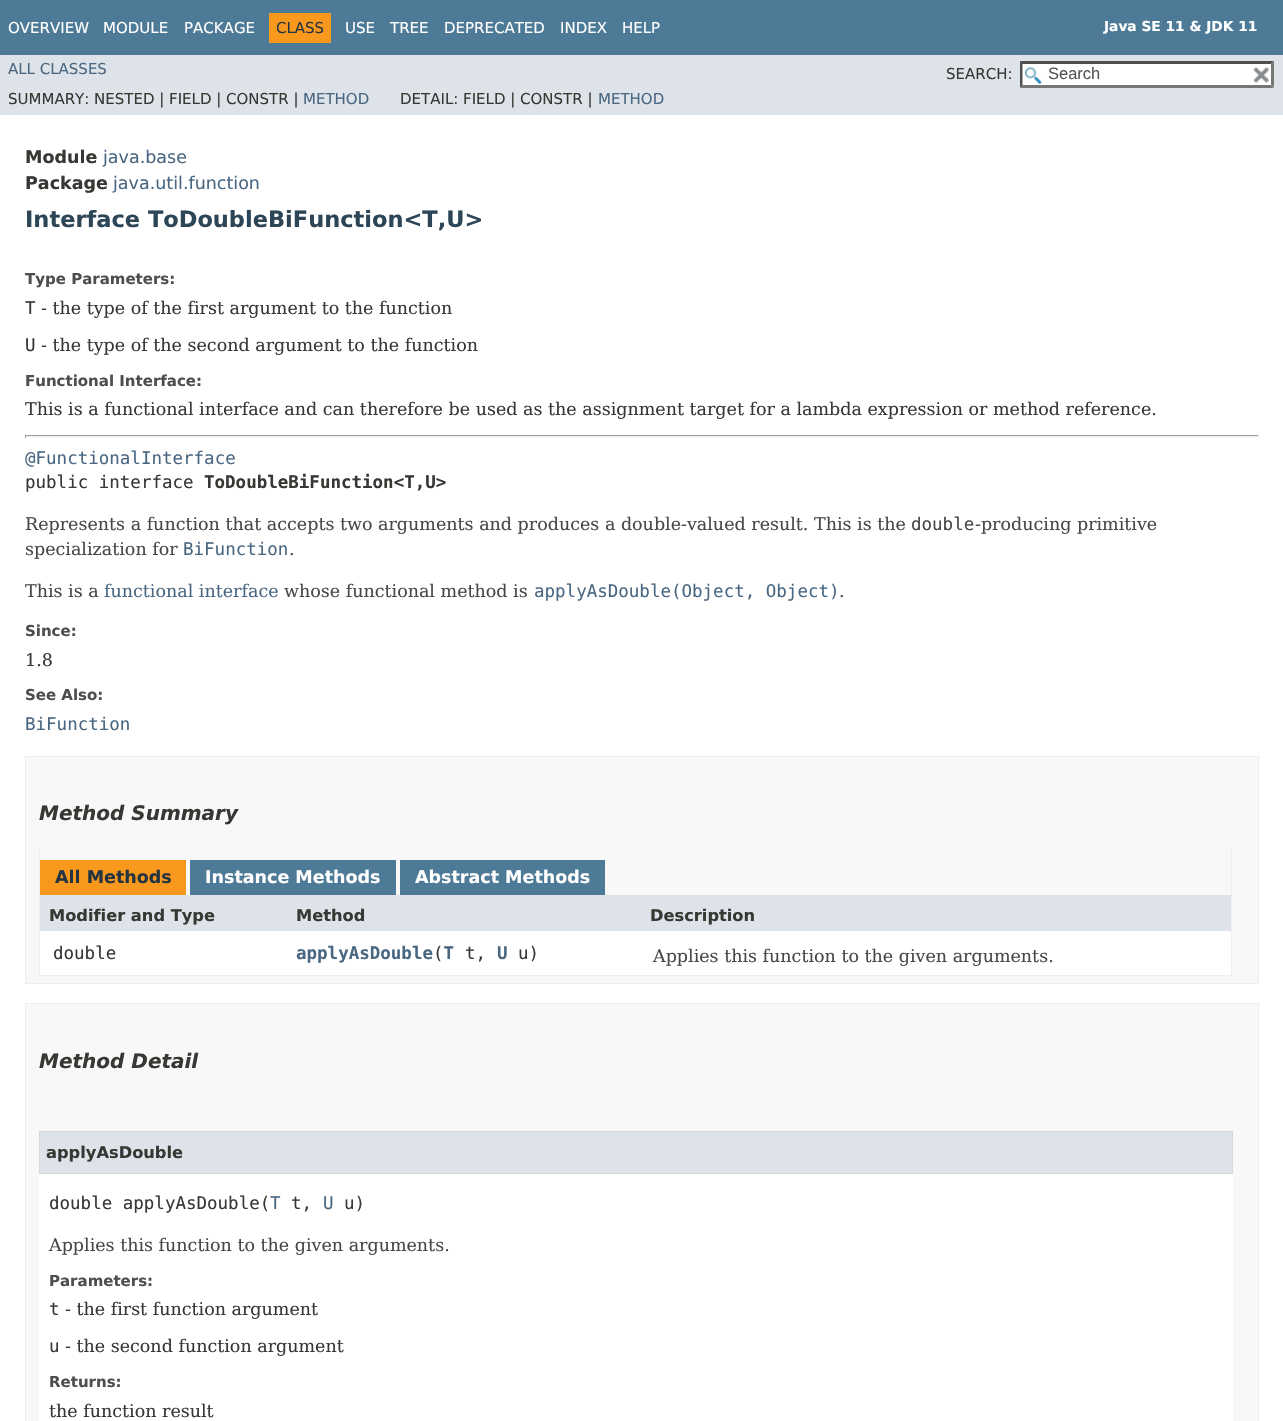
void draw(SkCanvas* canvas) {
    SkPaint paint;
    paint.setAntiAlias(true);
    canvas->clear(0xFFFFFFFF);
    paint.setColor(0xFF4D7A97);
    canvas->drawRect(SkRect::MakeXYWH(0, 0, 1283, 55), paint);
    SkFont font1(fontMgr->matchFamilyStyle("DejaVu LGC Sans", SkFontStyle::Normal()), 15);
    font1.setSubpixel(true);
    paint.setColor(0xFFFFFFFF);
    canvas->drawString("OVERVIEW", 8, 33, font1, paint);
    canvas->drawString("MODULE", 103, 33, font1, paint);
    canvas->drawString("PACKAGE", 184, 33, font1, paint);
    paint.setColor(0xFFF8981D);
    canvas->drawRect(SkRect::MakeXYWH(269, 13, 62, 30), paint);
    paint.setColor(0xFF253441);
    canvas->drawString("CLASS", 276, 33, font1, paint);
    paint.setColor(0xFFFFFFFF);
    canvas->drawString("USE", 345, 33, font1, paint);
    canvas->drawString("TREE", 390, 33, font1, paint);
    canvas->drawString("DEPRECATED", 444, 33, font1, paint);
    canvas->drawString("INDEX", 560, 33, font1, paint);
    canvas->drawString("HELP", 622, 33, font1, paint);
    SkFont font2(fontMgr->matchFamilyStyle("DejaVu LGC Sans", SkFontStyle::Bold()), 13.75f);
    font2.setSubpixel(true);
    canvas->drawString("Java SE 11 & JDK 11", 1104, 31, font2, paint);
    paint.setColor(0xFFDEE3E9);
    canvas->drawRect(SkRect::MakeXYWH(0, 55, 1283, 60), paint);
    paint.setColor(0xFF4A6782);
    canvas->drawString("ALL CLASSES", 8, 74, font1, paint);
    paint.setColor(0xFF353833);
    canvas->drawString("SEARCH:", 946, 79, font1, paint);
    paint.setColor(0xFFFFFFFF);
    canvas->drawRect(SkRect::MakeXYWH(1020, 61, 254, 27), paint);
    canvas->drawImageRect(SkImages::DeferredFromEncodedData(SkData::MakeFromFileName("img1.png")), SkRect::MakeXYWH(1025, 67, 17, 17), SkSamplingOptions());
    paint.setColor(0xFF4F4F4F);
    canvas->drawPath(SkPathBuilder().moveTo(1020, 61).lineTo(1274, 61).lineTo(1271, 64).lineTo(1022, 64).close().detach(), paint);
    paint.setColor(0xFF767676);
    canvas->drawPath(SkPathBuilder().moveTo(1274, 61).lineTo(1274, 87.5f).lineTo(1271, 85).lineTo(1271, 64).close().detach(), paint);
    canvas->drawPath(SkPathBuilder().moveTo(1274, 88).lineTo(1020, 88).lineTo(1022, 85).lineTo(1271, 85).close().detach(), paint);
    paint.setColor(0xFF4F4F4F);
    canvas->drawPath(SkPathBuilder().moveTo(1020, 87.5f).lineTo(1020, 61).lineTo(1022.5f, 64).lineTo(1022.5f, 85).close().detach(), paint);
    SkFont font3(fontMgr->matchFamilyStyle("Liberation Sans", SkFontStyle::Normal()), 16.5f);
    font3.setSubpixel(true);
    paint.setColor(0xFF545454);
    canvas->drawString("Search", 1048, 79, font3, paint);
    canvas->drawImageRect(SkImages::DeferredFromEncodedData(SkData::MakeFromFileName("img2.png")), SkRect::MakeXYWH(1253, 67, 16, 16), SkSamplingOptions());
    paint.setColor(0xFF353833);
    canvas->drawString("SUMMARY: NESTED | FIELD | CONSTR |", 8, 104, font1, paint);
    paint.setColor(0xFF4A6782);
    canvas->drawString("METHOD", 303, 104, font1, paint);
    paint.setColor(0xFF353833);
    canvas->drawString("DETAIL: FIELD | CONSTR |", 400, 104, font1, paint);
    paint.setColor(0xFF4A6782);
    canvas->drawString("METHOD", 598, 104, font1, paint);
    SkFont font4(fontMgr->matchFamilyStyle("DejaVu LGC Sans", SkFontStyle::Bold()), 17.5f);
    font4.setSubpixel(true);
    paint.setColor(0xFF353833);
    canvas->drawString("Module", 25, 163, font4, paint);
    SkFont font5(fontMgr->matchFamilyStyle("DejaVu LGC Sans", SkFontStyle::Normal()), 17.5f);
    font5.setSubpixel(true);
    paint.setColor(0xFF4A6782);
    canvas->drawString("java.base", 103, 163, font5, paint);
    paint.setColor(0xFF353833);
    canvas->drawString("Package", 25, 189, font4, paint);
    paint.setColor(0xFF4A6782);
    canvas->drawString("java.util.function", 113, 189, font5, paint);
    SkFont font6(fontMgr->matchFamilyStyle("DejaVu LGC Sans", SkFontStyle::Bold()), 22.5f);
    font6.setSubpixel(true);
    paint.setColor(0xFF2C4557);
    canvas->drawString("Interface ToDoubleBiFunction<T,U>", 25, 227, font6, paint);
    SkFont font7(fontMgr->matchFamilyStyle("DejaVu LGC Sans", SkFontStyle::Bold()), 15);
    font7.setSubpixel(true);
    paint.setColor(0xFF4E4E4E);
    canvas->drawString("Type Parameters:", 25, 284, font7, paint);
    SkFont font8(fontMgr->matchFamilyStyle("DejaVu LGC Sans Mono", SkFontStyle::Normal()), 17.5f);
    font8.setSubpixel(true);
    paint.setColor(0xFF353833);
    canvas->drawString("T", 25, 314, font8, paint);
    SkFont font9(fontMgr->matchFamilyStyle("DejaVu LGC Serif", SkFontStyle::Normal()), 17.5f);
    font9.setSubpixel(true);
    canvas->drawString("- the type of the first argument to the function", 41, 314, font9, paint);
    canvas->drawString("U", 25, 351, font8, paint);
    canvas->drawString("- the type of the second argument to the function", 41, 351, font9, paint);
    paint.setColor(0xFF4E4E4E);
    canvas->drawString("Functional Interface:", 25, 386, font7, paint);
    paint.setColor(0xFF353833);
    canvas->drawString("This is a functional interface and can therefore be used as the assignment target for a lambda expression or method reference.", 25, 415, font9, paint);
    paint.setColor(0xFF9F9F9F);
    canvas->drawRect(SkRect::MakeXYWH(25, 435, 1234, 1), paint);
    paint.setColor(0xFFEEEEEE);
    canvas->drawRect(SkRect::MakeXYWH(1258, 435, 1, 3), paint);
    canvas->drawRect(SkRect::MakeXYWH(25, 436, 1234, 1), paint);
    paint.setColor(0xFF9F9F9F);
    canvas->drawRect(SkRect::MakeXYWH(25, 435, 1, 3), paint);
    paint.setColor(0xFF4A6782);
    canvas->drawString("@FunctionalInterface", 25, 464, font8, paint);
    paint.setColor(0xFF353833);
    canvas->drawString("public interface", 25, 488, font8, paint);
    SkFont font10(fontMgr->matchFamilyStyle("DejaVu LGC Sans Mono", SkFontStyle::Bold()), 17.5f);
    font10.setSubpixel(true);
    canvas->drawString("ToDoubleBiFunction<T,U>", 204, 488, font10, paint);
    paint.setColor(0xFF474747);
    canvas->drawString("Represents a function that accepts two arguments and produces a double-valued result. This is the", 25, 530, font9, paint);
    canvas->drawString("double", 911, 530, font8, paint);
    canvas->drawString("-producing primitive", 975, 530, font9, paint);
    canvas->drawString("specialization for", 25, 555, font9, paint);
    paint.setColor(0xFF4A6782);
    canvas->drawString("BiFunction", 183, 555, font8, paint);
    paint.setColor(0xFF474747);
    canvas->drawString(".", 289, 555, font9, paint);
    canvas->drawString("This is a", 25, 597, font9, paint);
    paint.setColor(0xFF4A6782);
    canvas->drawString("functional interface", 104, 597, font9, paint);
    paint.setColor(0xFF474747);
    canvas->drawString("whose functional method is", 284, 597, font9, paint);
    paint.setColor(0xFF4A6782);
    canvas->drawString("applyAsDouble(Object, Object)", 534, 597, font8, paint);
    paint.setColor(0xFF474747);
    canvas->drawString(".", 839, 597, font9, paint);
    paint.setColor(0xFF4E4E4E);
    canvas->drawString("Since:", 25, 636, font7, paint);
    paint.setColor(0xFF353833);
    canvas->drawString("1.8", 25, 666, font9, paint);
    paint.setColor(0xFF4E4E4E);
    canvas->drawString("See Also:", 25, 700, font7, paint);
    paint.setColor(0xFF4A6782);
    canvas->drawString("BiFunction", 25, 730, font8, paint);
    paint.setColor(0xFFF8F8F8);
    canvas->drawRect(SkRect::MakeXYWH(25.5f, 756.5f, 1233, 227), paint);
    paint.setStyle(SkPaint::kStroke_Style);
    paint.setStrokeWidth(1);
    paint.setColor(0xFFEDEDED);
    canvas->drawRect(SkRect::MakeXYWH(25.5f, 756.5f, 1233, 227), paint);
    SkFont font11(fontMgr->matchFamilyStyle("DejaVu LGC Sans", SkFontStyle::BoldItalic()), 20);
    font11.setSubpixel(true);
    paint.setStyle(SkPaint::kFill_Style);
    paint.setColor(0xFF353833);
    canvas->drawString("Method Summary", 39, 820, font11, paint);
    paint.setColor(0xFFEEEEEE);
    canvas->drawRect(SkRect::MakeXYWH(1231, 848, 1, 128), paint);
    canvas->drawRect(SkRect::MakeXYWH(39, 975, 1194, 1), paint);
    canvas->drawRect(SkRect::MakeXYWH(39, 848, 1, 128), paint);
    paint.setColor(0xFFF8981D);
    canvas->drawRect(SkRect::MakeXYWH(40, 860, 146, 35), paint);
    paint.setColor(0xFF253441);
    canvas->drawString("All Methods", 55, 883, font4, paint);
    paint.setColor(0xFF4D7A97);
    canvas->drawRect(SkRect::MakeXYWH(190, 860, 206, 35), paint);
    paint.setColor(0xFFFFFFFF);
    canvas->drawString("Instance Methods", 205, 883, font4, paint);
    paint.setColor(0xFF4D7A97);
    canvas->drawRect(SkRect::MakeXYWH(400, 860, 205, 35), paint);
    paint.setColor(0xFFFFFFFF);
    canvas->drawString("Abstract Methods", 415, 883, font4, paint);
    paint.setColor(0xFFDEE3E9);
    canvas->drawRect(SkRect::MakeXYWH(40, 895, 1191, 36), paint);
    SkFont font12(fontMgr->matchFamilyStyle("DejaVu LGC Sans", SkFontStyle::Bold()), 16.25f);
    font12.setSubpixel(true);
    paint.setColor(0xFF353833);
    canvas->drawString("Modifier and Type", 49, 921, font12, paint);
    canvas->drawString("Method", 296, 921, font12, paint);
    canvas->drawString("Description", 650, 921, font12, paint);
    paint.setColor(0xFFFFFFFF);
    canvas->drawRect(SkRect::MakeXYWH(40, 931, 1191, 44), paint);
    paint.setColor(0xFF353833);
    canvas->drawString("double", 53, 959, font8, paint);
    paint.setColor(0xFF4A6782);
    canvas->drawString("applyAsDouble T", 296, 959, font10, paint);
    paint.setColor(0xFF353833);
    canvas->drawString("(", 433, 959, font8, paint);
    canvas->drawString("t,", 465, 959, font8, paint);
    paint.setColor(0xFF4A6782);
    canvas->drawString("U", 497, 959, font10, paint);
    paint.setColor(0xFF353833);
    canvas->drawString("u)", 518, 959, font8, paint);
    paint.setColor(0xFF474747);
    canvas->drawString("Applies this function to the given arguments.", 653, 962, font9, paint);
    paint.setColor(0xFFF8F8F8);
    canvas->drawRect(SkRect::MakeXYWH(25.5f, 1003.5f, 1233, 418), paint);
    paint.setStyle(SkPaint::kStroke_Style);
    paint.setColor(0xFFEDEDED);
    canvas->drawRect(SkRect::MakeXYWH(25.5f, 1003.5f, 1233, 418), paint);
    paint.setStyle(SkPaint::kFill_Style);
    paint.setColor(0xFF353833);
    canvas->drawString("Method Detail", 39, 1068, font11, paint);
    paint.setColor(0xFFFFFFFF);
    canvas->drawRect(SkRect::MakeXYWH(39, 1174, 1194, 247), paint);
    paint.setColor(0xFFDEE3E9);
    canvas->drawRect(SkRect::MakeXYWH(39.5f, 1131.5f, 1193, 42), paint);
    paint.setStyle(SkPaint::kStroke_Style);
    paint.setColor(0xFFD0D9E0);
    canvas->drawRect(SkRect::MakeXYWH(39.5f, 1131.5f, 1193, 42), paint);
    paint.setStyle(SkPaint::kFill_Style);
    paint.setColor(0xFF353833);
    canvas->drawString("applyAsDouble", 46, 1158, font12, paint);
    canvas->drawString("double applyAsDouble(", 49, 1209, font8, paint);
    paint.setColor(0xFF4A6782);
    canvas->drawString("T", 270, 1209, font8, paint);
    paint.setColor(0xFF353833);
    canvas->drawString("t,", 291, 1209, font8, paint);
    paint.setColor(0xFF4A6782);
    canvas->drawString("U", 323, 1209, font8, paint);
    paint.setColor(0xFF353833);
    canvas->drawString("u)", 344, 1209, font8, paint);
    paint.setColor(0xFF474747);
    canvas->drawString("Applies this function to the given arguments.", 49, 1251, font9, paint);
    paint.setColor(0xFF4E4E4E);
    canvas->drawString("Parameters:", 49, 1286, font7, paint);
    paint.setColor(0xFF353833);
    canvas->drawString("t", 49, 1315, font8, paint);
    canvas->drawString("- the first function argument", 65, 1315, font9, paint);
    canvas->drawString("u", 49, 1352, font8, paint);
    canvas->drawString("- the second function argument", 65, 1352, font9, paint);
    paint.setColor(0xFF4E4E4E);
    canvas->drawString("Returns:", 49, 1387, font7, paint);
    paint.setColor(0xFF353833);
    canvas->drawString("the function result", 49, 1417, font9, paint);
}
